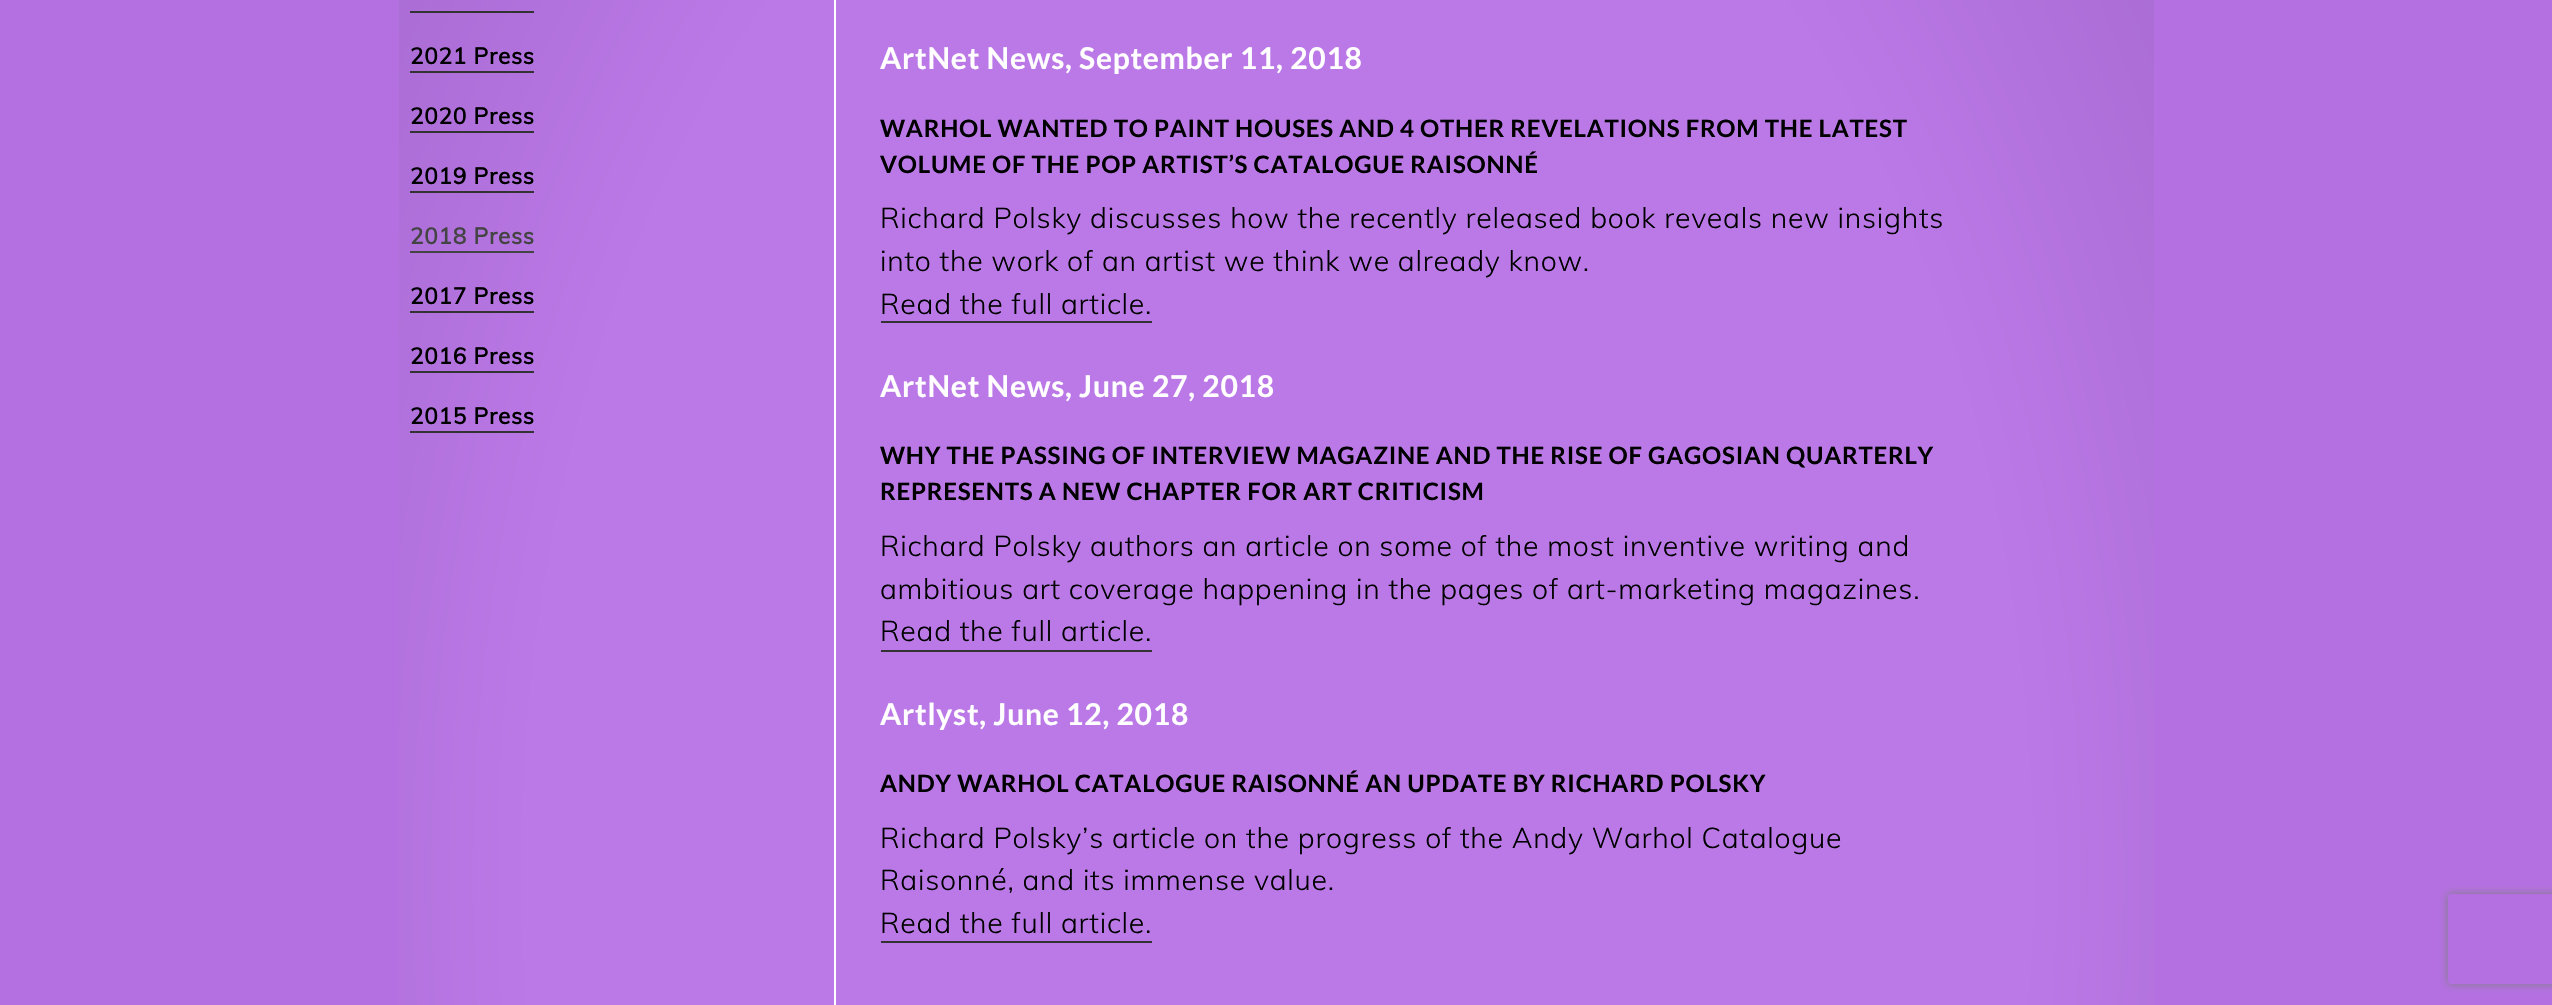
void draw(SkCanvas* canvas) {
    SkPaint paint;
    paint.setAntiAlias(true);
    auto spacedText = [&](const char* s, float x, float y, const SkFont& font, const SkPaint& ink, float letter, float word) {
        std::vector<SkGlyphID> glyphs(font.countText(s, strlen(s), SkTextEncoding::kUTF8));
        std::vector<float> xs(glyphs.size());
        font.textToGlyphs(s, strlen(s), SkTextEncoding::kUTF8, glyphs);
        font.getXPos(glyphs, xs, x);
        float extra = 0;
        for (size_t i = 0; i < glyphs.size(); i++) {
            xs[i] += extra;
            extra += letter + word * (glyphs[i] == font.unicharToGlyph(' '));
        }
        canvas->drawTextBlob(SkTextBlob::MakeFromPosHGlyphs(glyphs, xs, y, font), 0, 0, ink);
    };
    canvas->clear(0xFFB470E1);
    {
        const SkColor colors[] = {0xFFBB79E7, 0xFFA064CA};
        const float stops[] = {0.6f, 1};
        SkMatrix m = SkMatrix::Translate(1277, 874).preScale(1241, 1946);
        paint.setShader(SkGradientShader::MakeRadial({0, 0}, 1, colors, stops, 2, SkTileMode::kClamp, 0, &m));
        paint.setAlpha(255);
    }
    canvas->drawRect(SkRect::MakeXYWH(399, 0, 1755, 1005), paint);
    paint.setShader(nullptr);
    paint.setColor(0xFF333333);
    canvas->drawRect(SkRect::MakeXYWH(410, 11, 124, 2), paint);
    SkFont font1(fontMgr->matchFamilyStyle("Muli", SkFontStyle::Bold()), 22.5f);
    font1.setSubpixel(true);
    paint.setColor(0xFF000000);
    spacedText("2021 Press", 410, 64, font1, paint, 0.75f, 0);
    paint.setColor(0xFF333333);
    canvas->drawRect(SkRect::MakeXYWH(410, 71, 124, 2), paint);
    paint.setColor(0xFF000000);
    spacedText("2020 Press", 410, 124, font1, paint, 0.75f, 0);
    paint.setColor(0xFF333333);
    canvas->drawRect(SkRect::MakeXYWH(410, 131, 124, 2), paint);
    paint.setColor(0xFF000000);
    spacedText("2019 Press", 410, 184, font1, paint, 0.75f, 0);
    paint.setColor(0xFF333333);
    canvas->drawRect(SkRect::MakeXYWH(410, 191, 124, 2), paint);
    paint.setColor(0xFF444444);
    spacedText("2018 Press", 410, 244, font1, paint, 0.75f, 0);
    canvas->drawRect(SkRect::MakeXYWH(410, 251, 124, 2), paint);
    paint.setColor(0xFF000000);
    spacedText("2017 Press", 410, 304, font1, paint, 0.75f, 0);
    paint.setColor(0xFF333333);
    canvas->drawRect(SkRect::MakeXYWH(410, 311, 124, 2), paint);
    paint.setColor(0xFF000000);
    spacedText("2016 Press", 410, 364, font1, paint, 0.75f, 0);
    paint.setColor(0xFF333333);
    canvas->drawRect(SkRect::MakeXYWH(410, 371, 124, 2), paint);
    paint.setColor(0xFF000000);
    spacedText("2015 Press", 410, 424, font1, paint, 0.75f, 0);
    paint.setColor(0xFF333333);
    canvas->drawRect(SkRect::MakeXYWH(410, 431, 124, 2), paint);
    paint.setColor(0xFFFFFFFF);
    canvas->drawRect(SkRect::MakeXYWH(834, 0, 2, 1005), paint);
    SkFont font2(fontMgr->matchFamilyStyle("Lato", SkFontStyle::Bold()), 30);
    font2.setSubpixel(true);
    spacedText("ArtNet News, September 11, 2018", 880, 69, font2, paint, 0.75f, 0);
    SkFont font3(fontMgr->matchFamilyStyle("Lato", SkFontStyle::Bold()), 24);
    font3.setSubpixel(true);
    paint.setColor(0xFF000000);
    spacedText("WARHOL WANTED TO PAINT HOUSES AND 4 OTHER REVELATIONS FROM THE LATEST", 880, 137, font3, paint, 0.75f, 0);
    spacedText("VOLUME OF THE POP ARTIST’S CATALOGUE RAISONNÉ", 880, 173, font3, paint, 0.75f, 0);
    SkFont font4(fontMgr->matchFamilyStyle("Muli", SkFontStyle(300, SkFontStyle::kNormal_Width, SkFontStyle::kUpright_Slant)), 28.5f);
    font4.setSubpixel(true);
    spacedText("Richard Polsky discusses how the recently released book reveals new insights", 880, 228, font4, paint, 0.75f, 0);
    spacedText("into the work of an artist we think we already know.", 880, 271, font4, paint, 0.75f, 0);
    spacedText("Read the full article.", 880, 314, font4, paint, 0.75f, 0);
    paint.setColor(0xFF333333);
    canvas->drawRect(SkRect::MakeXYWH(881, 321, 271, 2), paint);
    paint.setColor(0xFFFFFFFF);
    spacedText("ArtNet News, June 27, 2018", 880, 397, font2, paint, 0.75f, 0);
    paint.setColor(0xFF000000);
    spacedText("WHY THE PASSING OF INTERVIEW MAGAZINE AND THE RISE OF GAGOSIAN QUARTERLY", 880, 464, font3, paint, 0.75f, 0);
    spacedText("REPRESENTS A NEW CHAPTER FOR ART CRITICISM", 880, 500, font3, paint, 0.75f, 0);
    spacedText("Richard Polsky authors an article on some of the most inventive writing and", 880, 556, font4, paint, 0.75f, 0);
    spacedText("ambitious art coverage happening in the pages of art-marketing magazines.", 880, 599, font4, paint, 0.75f, 0);
    spacedText("Read the full article.", 880, 641, font4, paint, 0.75f, 0);
    paint.setColor(0xFF333333);
    canvas->drawRect(SkRect::MakeXYWH(881, 650, 271, 2), paint);
    paint.setColor(0xFFFFFFFF);
    spacedText("Artlyst, June 12, 2018", 880, 725, font2, paint, 0.75f, 0);
    paint.setColor(0xFF000000);
    spacedText("ANDY WARHOL CATALOGUE RAISONNÉ AN UPDATE BY RICHARD POLSKY", 880, 792, font3, paint, 0.75f, 0);
    spacedText("Richard Polsky’s article on the progress of the Andy Warhol Catalogue", 880, 848, font4, paint, 0.75f, 0);
    spacedText("Raisonné, and its immense value.", 880, 890, font4, paint, 0.75f, 0);
    spacedText("Read the full article.", 880, 933, font4, paint, 0.75f, 0);
    paint.setColor(0xFF333333);
    canvas->drawRect(SkRect::MakeXYWH(881, 941, 271, 2), paint);
    canvas->save();
    canvas->clipPath(SkPathBuilder(SkPathFillType::kEvenOdd).moveTo(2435, 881).lineTo(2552, 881).lineTo(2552, 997).lineTo(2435, 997).close().moveTo(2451, 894).lineTo(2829, 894).cubicTo(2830.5f, 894, 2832, 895.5f, 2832, 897).lineTo(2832, 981).cubicTo(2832, 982.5f, 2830.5f, 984, 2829, 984).lineTo(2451, 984).cubicTo(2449.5f, 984, 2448, 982.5f, 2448, 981).lineTo(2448, 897).cubicTo(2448, 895.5f, 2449.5f, 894, 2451, 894).close().detach(), true);
    paint.setColor(0xFF808080);
    paint.setMaskFilter(SkMaskFilter::MakeBlur(kNormal_SkBlurStyle, 4));
    canvas->drawRoundRect(SkRect::MakeXYWH(2448, 894, 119, 90), 3, 3, paint);
    paint.setMaskFilter(nullptr);
    canvas->restore();
}
